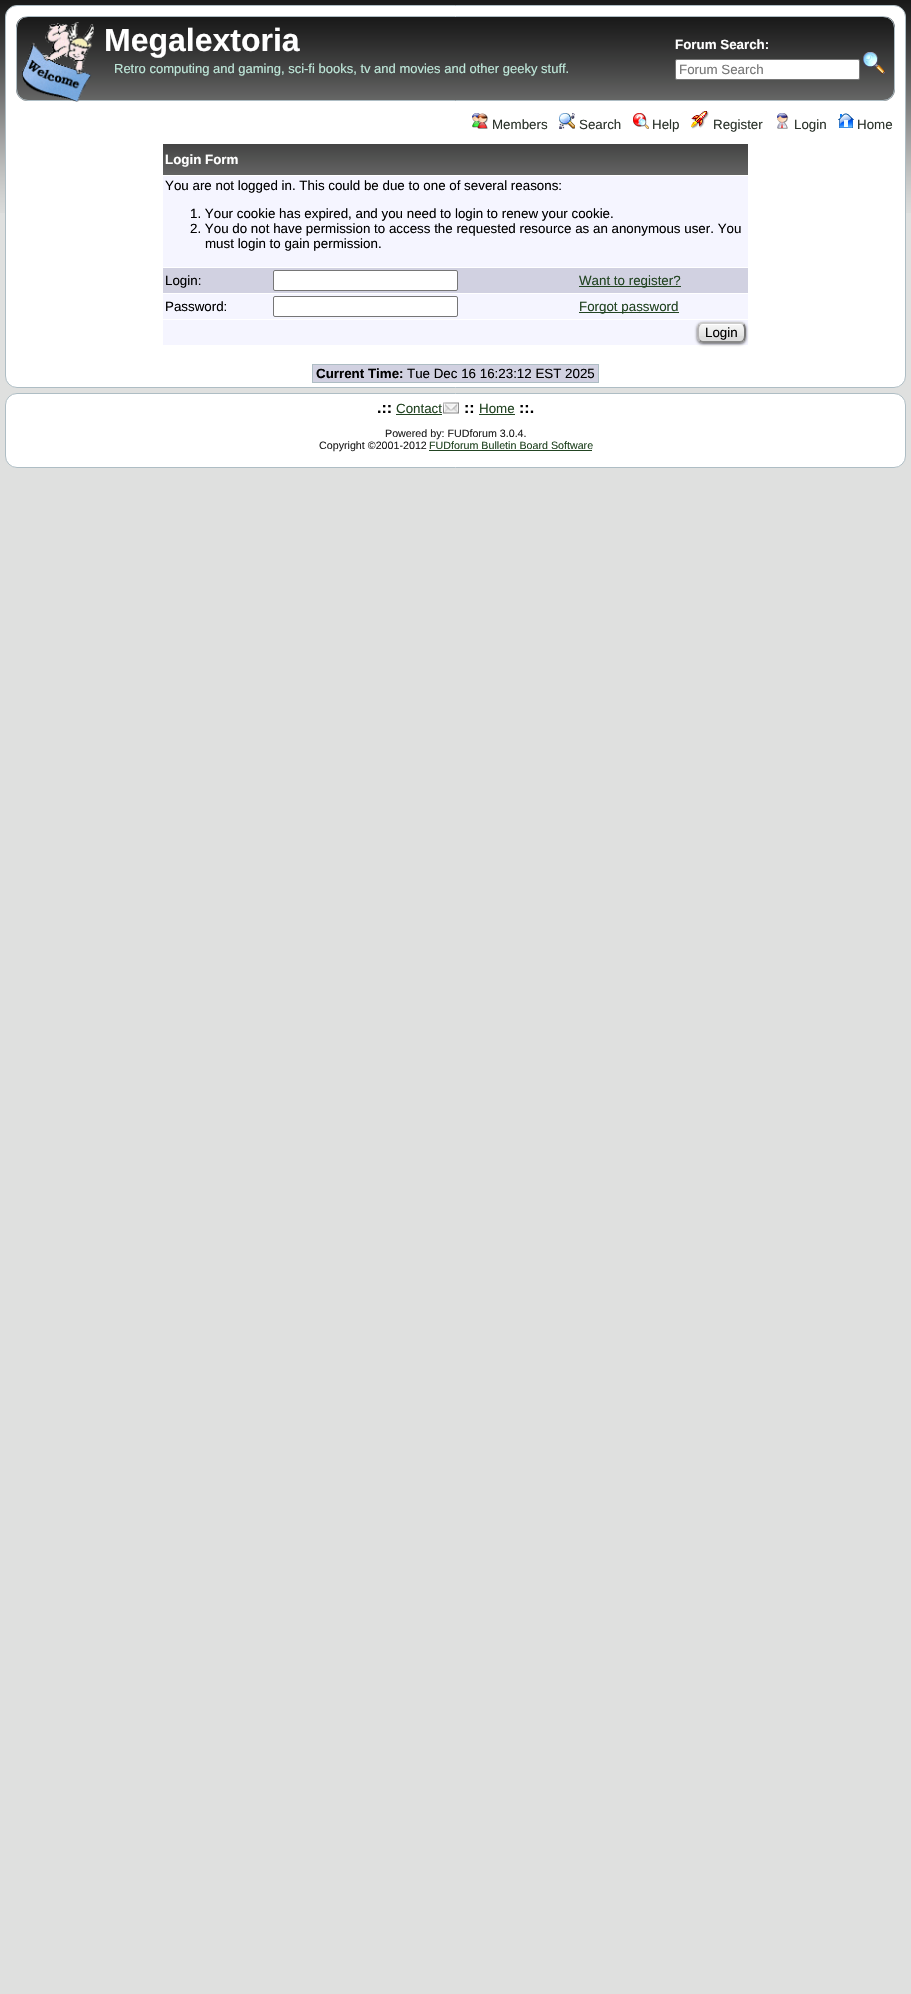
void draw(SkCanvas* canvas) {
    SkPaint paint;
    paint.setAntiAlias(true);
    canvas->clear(0xFFDFE0DF);
    canvas->drawImageRect(SkImages::DeferredFromEncodedData(SkData::MakeFromFileName("img1.png")), SkRect::MakeXYWH(0, 0, 911, 213), SkSamplingOptions());
    paint.setColor(0xFFFFFFFF);
    canvas->drawRoundRect(SkRect::MakeXYWH(5.5f, 5.5f, 900, 382), 11.5f, 11.5f, paint);
    paint.setStyle(SkPaint::kStroke_Style);
    paint.setStrokeWidth(1);
    paint.setColor(0xFFAEBDC4);
    canvas->drawRoundRect(SkRect::MakeXYWH(5.5f, 5.5f, 900, 382), 11.5f, 11.5f, paint);
    canvas->drawImageRect(SkImages::DeferredFromEncodedData(SkData::MakeFromFileName("img2.png")), SkRect::MakeXYWH(16, 17, 879, 84), SkSamplingOptions());
    canvas->drawRoundRect(SkRect::MakeXYWH(16.5f, 16.5f, 878, 84), 11.5f, 11.5f, paint);
    canvas->drawImageRect(SkImages::DeferredFromEncodedData(SkData::MakeFromFileName("img3.png")), SkRect::MakeXYWH(22, 22, 72, 80), SkSamplingOptions());
    SkFont font1(fontMgr->matchFamilyStyle("Liberation Sans", SkFontStyle::Bold()), 32);
    font1.setSubpixel(true);
    paint.setStyle(SkPaint::kFill_Style);
    paint.setColor(0xFFFFFFFF);
    canvas->drawString("Megalextoria", 104, 51, font1, paint);
    SkFont font2(fontMgr->matchFamilyStyle("Liberation Sans", SkFontStyle::Bold()), 13.35f);
    font2.setSubpixel(true);
    canvas->drawString("Forum Search:", 675, 49, font2, paint);
    canvas->drawRoundRect(SkRect::MakeXYWH(675.5f, 59.5f, 184, 20), 1.5f, 1.5f, paint);
    paint.setStyle(SkPaint::kStroke_Style);
    paint.setColor(0xFF767676);
    canvas->drawRoundRect(SkRect::MakeXYWH(675.5f, 59.5f, 184, 20), 1.5f, 1.5f, paint);
    SkFont font3(fontMgr->matchFamilyStyle("Liberation Sans", SkFontStyle::Normal()), 13.35f);
    font3.setSubpixel(true);
    paint.setStyle(SkPaint::kFill_Style);
    paint.setColor(0xFF757575);
    canvas->drawString("Forum Search", 679, 74, font3, paint);
    canvas->drawImageRect(SkImages::DeferredFromEncodedData(SkData::MakeFromFileName("img4.png")), SkRect::MakeXYWH(863, 52, 22, 22), SkSamplingOptions());
    SkFont font4(fontMgr->matchFamilyStyle("Liberation Sans", SkFontStyle::Normal()), 13);
    font4.setSubpixel(true);
    paint.setColor(0xFFBEE7D9);
    canvas->drawString("Retro computing and gaming, sci-fi books, tv and movies and other geeky stuff.", 114, 73, font4, paint);
    canvas->drawImageRect(SkImages::DeferredFromEncodedData(SkData::MakeFromFileName("img5.png")), SkRect::MakeXYWH(472, 113, 16, 16), SkSamplingOptions());
    paint.setColor(0xFF2B332B);
    canvas->drawString("Members", 492, 129, font3, paint);
    canvas->drawImageRect(SkImages::DeferredFromEncodedData(SkData::MakeFromFileName("img6.png")), SkRect::MakeXYWH(559, 113, 16, 16), SkSamplingOptions());
    canvas->drawString("Search", 579, 129, font3, paint);
    canvas->drawImageRect(SkImages::DeferredFromEncodedData(SkData::MakeFromFileName("img7.png")), SkRect::MakeXYWH(633, 113, 16, 16), SkSamplingOptions());
    canvas->drawString("Help", 652, 129, font3, paint);
    canvas->drawImageRect(SkImages::DeferredFromEncodedData(SkData::MakeFromFileName("img8.png")), SkRect::MakeXYWH(691, 111, 18, 18), SkSamplingOptions());
    canvas->drawString("Register", 713, 129, font3, paint);
    canvas->drawImageRect(SkImages::DeferredFromEncodedData(SkData::MakeFromFileName("img9.png")), SkRect::MakeXYWH(777, 113, 12, 16), SkSamplingOptions());
    canvas->drawString("Login", 794, 129, font3, paint);
    canvas->drawImageRect(SkImages::DeferredFromEncodedData(SkData::MakeFromFileName("img10.png")), SkRect::MakeXYWH(838, 113, 16, 15), SkSamplingOptions());
    canvas->drawString("Home", 857, 129, font3, paint);
    canvas->drawImageRect(SkImages::DeferredFromEncodedData(SkData::MakeFromFileName("img11.png")), SkRect::MakeXYWH(163, 144, 585, 31), SkSamplingOptions());
    paint.setColor(0xFFFFFFFF);
    canvas->drawString("Login Form", 165, 164, font2, paint);
    paint.setColor(0xFFF5F5FF);
    canvas->drawRect(SkRect::MakeXYWH(163, 176, 585, 91), paint);
    paint.setColor(0xFF000000);
    canvas->drawString("You are not logged in. This could be due to one of several reasons:", 165, 190, font3, paint);
    canvas->drawString("1. Your cookie has expired, and you need to login to renew your cookie.", 190, 218, font3, paint);
    canvas->drawString("2. You do not have permission to access the requested resource as an anonymous user. You", 190, 233, font3, paint);
    canvas->drawString("must login to gain permission.", 205, 248, font3, paint);
    paint.setColor(0xFFD1D1E1);
    canvas->drawRect(SkRect::MakeXYWH(163, 268, 585, 25), paint);
    paint.setColor(0xFF000000);
    canvas->drawString("Login:", 165, 285, font3, paint);
    paint.setColor(0xFFFFFFFF);
    canvas->drawRoundRect(SkRect::MakeXYWH(273.5f, 270.5f, 184, 20), 1.5f, 1.5f, paint);
    paint.setStyle(SkPaint::kStroke_Style);
    paint.setColor(0xFF767676);
    canvas->drawRoundRect(SkRect::MakeXYWH(273.5f, 270.5f, 184, 20), 1.5f, 1.5f, paint);
    paint.setStyle(SkPaint::kFill_Style);
    paint.setColor(0xFF224422);
    canvas->drawRect(SkRect::MakeXYWH(579, 286, 102, 1), paint);
    canvas->drawString("Want to register?", 579, 285, font3, paint);
    paint.setColor(0xFFF5F5FF);
    canvas->drawRect(SkRect::MakeXYWH(163, 294, 585, 25), paint);
    paint.setColor(0xFF000000);
    canvas->drawString("Password:", 165, 311, font3, paint);
    paint.setColor(0xFFFFFFFF);
    canvas->drawRoundRect(SkRect::MakeXYWH(273.5f, 296.5f, 184, 20), 1.5f, 1.5f, paint);
    paint.setStyle(SkPaint::kStroke_Style);
    paint.setColor(0xFF767676);
    canvas->drawRoundRect(SkRect::MakeXYWH(273.5f, 296.5f, 184, 20), 1.5f, 1.5f, paint);
    paint.setStyle(SkPaint::kFill_Style);
    paint.setColor(0xFF224422);
    canvas->drawRect(SkRect::MakeXYWH(579, 312, 100, 1), paint);
    canvas->drawString("Forgot password", 579, 311, font3, paint);
    paint.setColor(0xFFF5F5FF);
    canvas->drawRect(SkRect::MakeXYWH(163, 320, 585, 25), paint);
    paint.setColor(0x99000000);
    paint.setMaskFilter(SkMaskFilter::MakeBlur(kNormal_SkBlurStyle, 1.5f));
    canvas->drawRoundRect(SkRect::MakeXYWH(697, 323, 49, 21), 6, 6, paint);
    paint.setMaskFilter(nullptr);
    paint.setColor(0xFFDDDDDD);
    canvas->drawRoundRect(SkRect::MakeXYWH(697, 322, 49, 21), 6, 6, paint);
    canvas->drawImageRect(SkImages::DeferredFromEncodedData(SkData::MakeFromFileName("img12.png")), SkRect::MakeXYWH(697, 324, 49, 12), SkSamplingOptions());
    paint.setStyle(SkPaint::kStroke_Style);
    paint.setStrokeWidth(2);
    paint.setColor(0xFFCCCCCC);
    canvas->drawPath(SkPathBuilder().moveTo(699.5f, 324.5f).cubicTo(700.5f, 323.5f, 701.5f, 323, 703, 323).lineTo(740, 323).cubicTo(741.5f, 323, 742.5f, 323.5f, 743.5f, 324.5f).detach(), paint);
    paint.setColor(0xFF787778);
    canvas->drawPath(SkPathBuilder().moveTo(743.5f, 324.5f).cubicTo(745.5f, 326.5f, 745, 330, 745, 332.5f).cubicTo(745, 335, 745.5f, 338.5f, 743.5f, 340.5f).detach(), paint);
    paint.setColor(0xFF888888);
    canvas->drawPath(SkPathBuilder().moveTo(743.5f, 340.5f).cubicTo(742.5f, 341.5f, 741.5f, 342, 740, 342).lineTo(703, 342).cubicTo(701.5f, 342, 700.5f, 341.5f, 699.5f, 340.5f).detach(), paint);
    paint.setColor(0xFFB4B2B4);
    canvas->drawPath(SkPathBuilder().moveTo(699.5f, 340.5f).cubicTo(697.5f, 338.5f, 698, 335, 698, 332.5f).cubicTo(698, 330, 697.5f, 326.5f, 699.5f, 324.5f).detach(), paint);
    paint.setStyle(SkPaint::kFill_Style);
    paint.setColor(0xFF000000);
    canvas->drawString("Login", 705, 337, font3, paint);
    paint.setColor(0xFFD1D1E1);
    canvas->drawRect(SkRect::MakeXYWH(313, 365, 285, 17), paint);
    paint.setColor(0xFF000000);
    canvas->drawString("Current Time:", 316, 378, font2, paint);
    paint.setColor(0xFFAEBDC4);
    canvas->drawRect(SkRect::MakeXYWH(312, 364, 287, 1), paint);
    canvas->drawRect(SkRect::MakeXYWH(312, 382, 92, 1), paint);
    canvas->drawRect(SkRect::MakeXYWH(312, 364, 1, 19), paint);
    paint.setColor(0xFF000000);
    canvas->drawString("Tue Dec 16 16:23:12 EST 2025", 407, 378, font3, paint);
    paint.setColor(0xFFAEBDC4);
    canvas->drawRect(SkRect::MakeXYWH(598, 364, 1, 19), paint);
    canvas->drawRect(SkRect::MakeXYWH(404, 382, 195, 1), paint);
    paint.setColor(0xFFFFFFFF);
    canvas->drawRoundRect(SkRect::MakeXYWH(5.5f, 393.5f, 900, 74), 11.5f, 11.5f, paint);
    paint.setStyle(SkPaint::kStroke_Style);
    paint.setStrokeWidth(1);
    paint.setColor(0xFFAEBDC4);
    canvas->drawRoundRect(SkRect::MakeXYWH(5.5f, 393.5f, 900, 74), 11.5f, 11.5f, paint);
    SkFont font5(fontMgr->matchFamilyStyle("Liberation Sans", SkFontStyle::Bold()), 16);
    font5.setSubpixel(true);
    paint.setStyle(SkPaint::kFill_Style);
    paint.setColor(0xFF000000);
    canvas->drawString(".::", 377, 413, font5, paint);
    paint.setColor(0xFF224422);
    canvas->drawString("Contact", 396, 413, font3, paint);
    canvas->drawRect(SkRect::MakeXYWH(396, 414, 46, 1), paint);
    canvas->drawImageRect(SkImages::DeferredFromEncodedData(SkData::MakeFromFileName("img13.png")), SkRect::MakeXYWH(443, 402, 16, 12), SkSamplingOptions());
    paint.setColor(0xFF000000);
    canvas->drawString("::", 464, 413, font5, paint);
    paint.setColor(0xFF224422);
    canvas->drawString("Home", 479, 413, font3, paint);
    canvas->drawRect(SkRect::MakeXYWH(479, 414, 36, 1), paint);
    paint.setColor(0xFF000000);
    canvas->drawString("::.", 519, 413, font5, paint);
    SkFont font6(fontMgr->matchFamilyStyle("Liberation Sans", SkFontStyle::Normal()), 10.7f);
    font6.setSubpixel(true);
    paint.setColor(0xFF202020);
    canvas->drawString("Powered by: FUDforum 3.0.4.", 385, 437, font6, paint);
    canvas->drawString("Copyright ©2001-2012", 319, 449, font6, paint);
    paint.setColor(0xFF224422);
    canvas->drawString("FUDforum Bulletin Board Software", 429, 449, font6, paint);
    canvas->drawRect(SkRect::MakeXYWH(429, 450, 163, 1), paint);
}
